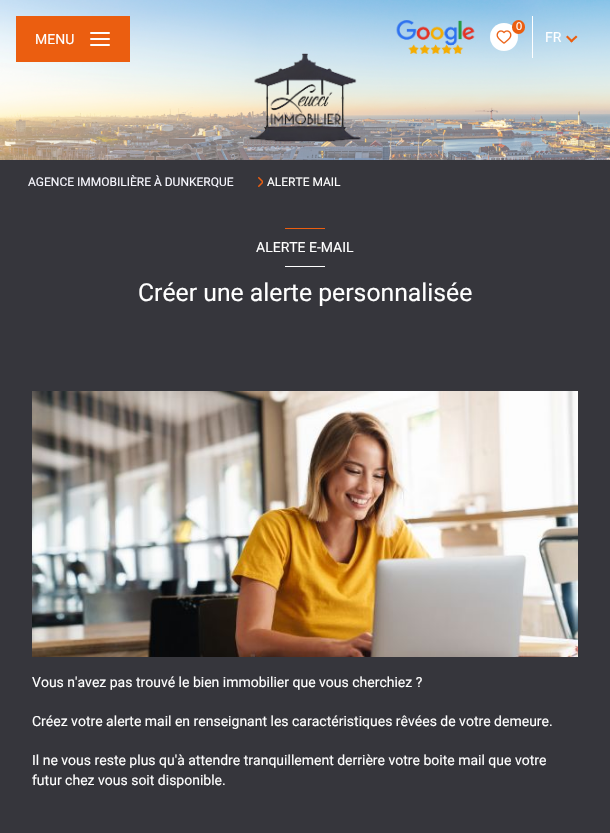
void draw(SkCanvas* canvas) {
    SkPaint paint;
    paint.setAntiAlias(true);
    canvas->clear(0xFF36363C);
    canvas->drawImageRect(SkImages::DeferredFromEncodedData(SkData::MakeFromFileName("img1.png")), SkRect::MakeXYWH(0, 0, 610, 160), SkSamplingOptions());
    paint.setColor(0xFFEB5E10);
    canvas->drawRect(SkRect::MakeXYWH(16, 16, 114, 46), paint);
    SkFont font1(fontMgr->matchFamilyStyle("Roboto", SkFontStyle::Normal()), 14);
    font1.setSubpixel(true);
    paint.setColor(0xFFFFFFFF);
    canvas->drawString("MENU", 35, 44, font1, paint);
    canvas->drawRoundRect(SkRect::MakeXYWH(90, 38, 20, 2), 1, 1, paint);
    canvas->drawRoundRect(SkRect::MakeXYWH(90, 32, 20, 2), 1, 1, paint);
    canvas->drawRoundRect(SkRect::MakeXYWH(90, 44, 20, 2), 1, 1, paint);
    canvas->drawImageRect(SkImages::DeferredFromEncodedData(SkData::MakeFromFileName("img2.png")), SkRect::MakeXYWH(248, 53, 114, 90), SkSamplingOptions());
    canvas->drawImageRect(SkImages::DeferredFromEncodedData(SkData::MakeFromFileName("img3.png")), SkRect::MakeXYWH(396, 20, 79, 34), SkSamplingOptions());
    canvas->drawCircle(504, 37, 14, paint);
    canvas->drawImageRect(SkImages::DeferredFromEncodedData(SkData::MakeFromFileName("img4.png")), SkRect::MakeXYWH(496, 30, 16, 14), SkSamplingOptions());
    paint.setColor(0xFFEB5E10);
    canvas->drawRoundRect(SkRect::MakeXYWH(512, 20, 13, 14), 6.5f, 6.5f, paint);
    SkFont font2(fontMgr->matchFamilyStyle("Liberation Sans", SkFontStyle::Normal()), 11);
    font2.setSubpixel(true);
    paint.setColor(0xFFFFFFFF);
    canvas->drawString("0", 516, 30, font2, paint);
    canvas->drawRect(SkRect::MakeXYWH(532, 16, 1, 42), paint);
    canvas->drawString("FR", 545, 42, font1, paint);
    paint.setColor(0xFFEB5E10);
    canvas->drawPath(SkPathBuilder().moveTo(576, 35.5f).lineTo(577.5f, 37).lineTo(571.5f, 42.5f).lineTo(570, 41).close().detach(), paint);
    canvas->drawPath(SkPathBuilder().moveTo(567.5f, 35.5f).lineTo(573, 41).lineTo(571.5f, 42.5f).lineTo(566, 37).close().detach(), paint);
    SkFont font3(fontMgr->matchFamilyStyle("Roboto", SkFontStyle::Normal()), 12);
    font3.setSubpixel(true);
    paint.setColor(0xFFF8F8FF);
    canvas->drawString("AGENCE IMMOBILIÈRE À DUNKERQUE", 28, 186, font3, paint);
    canvas->drawImageRect(SkImages::DeferredFromEncodedData(SkData::MakeFromFileName("img5.png")), SkRect::MakeXYWH(258, 177, 5, 10), SkSamplingOptions());
    paint.setColor(0xFFFFFFFF);
    canvas->drawString("ALERTE MAIL", 267, 186, font3, paint);
    paint.setColor(0xFFEB5E10);
    canvas->drawRect(SkRect::MakeXYWH(285, 228, 40, 1), paint);
    paint.setColor(0xFFFFFFFF);
    canvas->drawString("ALERTE E-MAIL", 256, 252, font1, paint);
    canvas->drawRect(SkRect::MakeXYWH(285, 266, 40, 1), paint);
    SkFont font4(fontMgr->matchFamilyStyle("Roboto", SkFontStyle::Normal()), 24.75f);
    font4.setSubpixel(true);
    canvas->drawString("Créer une alerte personnalisée", 138, 301, font4, paint);
    canvas->drawImageRect(SkImages::DeferredFromEncodedData(SkData::MakeFromFileName("img6.png")), SkRect::MakeXYWH(32, 391, 546, 266), SkSamplingOptions());
    canvas->drawString("Vous n'avez pas trouvé le bien immobilier que vous cherchiez ?", 32, 687, font1, paint);
    canvas->drawString("Créez votre alerte mail en renseignant les caractéristiques rêvées de votre demeure.", 32, 726, font1, paint);
    canvas->drawString("Il ne vous reste plus qu'à attendre tranquillement derrière votre boite mail que votre", 32, 765, font1, paint);
    canvas->drawString("futur chez vous soit disponible.", 32, 785, font1, paint);
}
